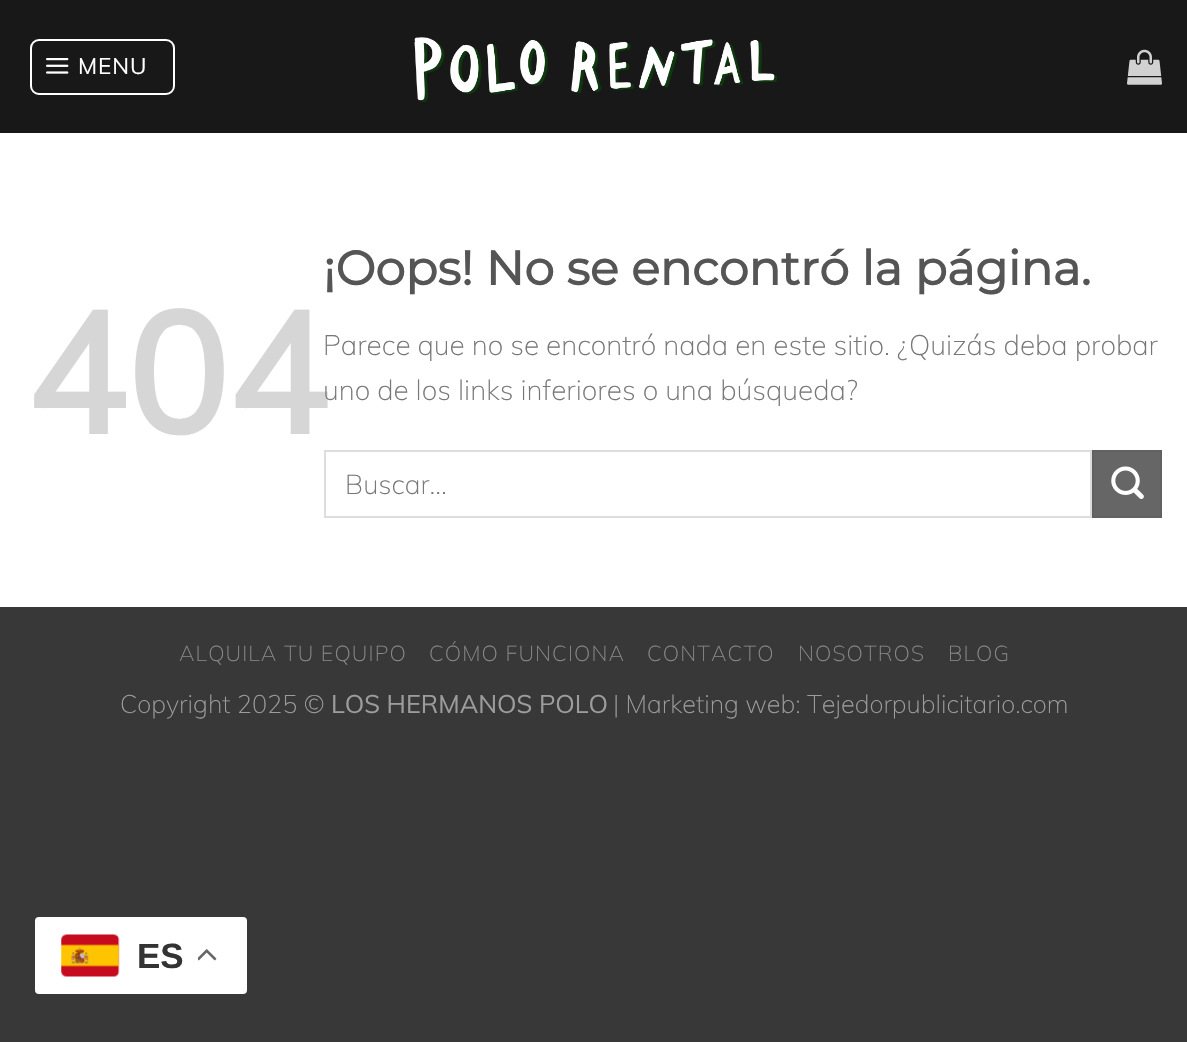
void draw(SkCanvas* canvas) {
    SkPaint paint;
    paint.setAntiAlias(true);
    auto spacedText = [&](const char* s, float x, float y, const SkFont& font, const SkPaint& ink, float letter, float word) {
        std::vector<SkGlyphID> glyphs(font.countText(s, strlen(s), SkTextEncoding::kUTF8));
        std::vector<float> xs(glyphs.size());
        font.textToGlyphs(s, strlen(s), SkTextEncoding::kUTF8, glyphs);
        font.getXPos(glyphs, xs, x);
        float extra = 0;
        for (size_t i = 0; i < glyphs.size(); i++) {
            xs[i] += extra;
            extra += letter + word * (glyphs[i] == font.unicharToGlyph(' '));
        }
        canvas->drawTextBlob(SkTextBlob::MakeFromPosHGlyphs(glyphs, xs, y, font), 0, 0, ink);
    };
    canvas->clear(0xFF383838);
    paint.setColor(0xFFFFFFFF);
    canvas->drawRect(SkRect::MakeXYWH(0, 133, 1187, 474), paint);
    paint.setColor(0xFF181818);
    canvas->drawRect(SkRect::MakeXYWH(0, 0, 1187, 133), paint);
    paint.setStyle(SkPaint::kStroke_Style);
    paint.setStrokeWidth(2);
    paint.setColor(0xFFFFFFFF);
    canvas->drawRoundRect(SkRect::MakeXYWH(31, 40, 143, 54), 8, 8, paint);
    canvas->drawImageRect(SkImages::DeferredFromEncodedData(SkData::MakeFromFileName("img1.png")), SkRect::MakeXYWH(46, 58, 23, 16), SkSamplingOptions());
    SkFont font1(fontMgr->matchFamilyStyle("Muli", SkFontStyle::Normal()), 22.5f);
    font1.setSubpixel(true);
    paint.setStyle(SkPaint::kFill_Style);
    spacedText("MENU", 78, 74, font1, paint, 1, 0);
    canvas->drawImageRect(SkImages::DeferredFromEncodedData(SkData::MakeFromFileName("img2.png")), SkRect::MakeXYWH(414, 37, 364, 65), SkSamplingOptions());
    canvas->drawImageRect(SkImages::DeferredFromEncodedData(SkData::MakeFromFileName("img3.png")), SkRect::MakeXYWH(1127, 49, 35, 36), SkSamplingOptions());
    SkFont font2(fontMgr->matchFamilyStyle("Muli", SkFontStyle::Bold()), 168);
    font2.setSubpixel(true);
    paint.setColor(0xFFD6D6D6);
    canvas->drawString("404", 26, 434, font2, paint);
    SkFont font3(fontMgr->matchFamilyStyle("Montserrat", SkFontStyle::Bold()), 47.6f);
    font3.setSubpixel(true);
    paint.setColor(0xFF555555);
    canvas->drawString("¡Oops! No se encontró la página.", 323, 285, font3, paint);
    SkFont font4(fontMgr->matchFamilyStyle("Muli", SkFontStyle(200, SkFontStyle::kNormal_Width, SkFontStyle::kUpright_Slant)), 28);
    font4.setSubpixel(true);
    paint.setColor(0xFF777777);
    canvas->drawString("Parece que no se encontró nada en este sitio. ¿Quizás deba probar", 323, 355, font4, paint);
    canvas->drawString("uno de los links inferiores o una búsqueda?", 323, 400, font4, paint);
    paint.setStyle(SkPaint::kStroke_Style);
    paint.setColor(0xFFDDDDDD);
    canvas->drawRect(SkRect::MakeXYWH(325, 451, 766, 66), paint);
    SkFont font5(fontMgr->matchFamilyStyle("Muli", SkFontStyle(200, SkFontStyle::kNormal_Width, SkFontStyle::kUpright_Slant)), 27);
    font5.setSubpixel(true);
    paint.setStyle(SkPaint::kFill_Style);
    paint.setColor(0xFF777777);
    canvas->drawString("Buscar…", 345, 494, font5, paint);
    paint.setColor(0xFF666666);
    canvas->drawRect(SkRect::MakeXYWH(1093, 451, 68, 66), paint);
    paint.setStyle(SkPaint::kStroke_Style);
    paint.setColor(0xFF616161);
    canvas->drawRect(SkRect::MakeXYWH(1093, 451, 68, 66), paint);
    canvas->drawImageRect(SkImages::DeferredFromEncodedData(SkData::MakeFromFileName("img4.png")), SkRect::MakeXYWH(1111, 466, 33, 33), SkSamplingOptions());
    SkFont font6(fontMgr->matchFamilyStyle("Muli", SkFontStyle(200, SkFontStyle::kNormal_Width, SkFontStyle::kUpright_Slant)), 21.5f);
    font6.setSubpixel(true);
    paint.setStyle(SkPaint::kFill_Style);
    paint.setColor(0xFF888888);
    spacedText("ALQUILA TU EQUIPO", 179, 661, font6, paint, 1.1f, 0);
    spacedText("CÓMO FUNCIONA", 429, 661, font6, paint, 1.1f, 0);
    spacedText("CONTACTO", 647, 661, font6, paint, 1.1f, 0);
    spacedText("NOSOTROS", 798, 661, font6, paint, 1.1f, 0);
    spacedText("BLOG", 948, 661, font6, paint, 1.1f, 0);
    SkFont font7(fontMgr->matchFamilyStyle("Muli", SkFontStyle(200, SkFontStyle::kNormal_Width, SkFontStyle::kUpright_Slant)), 25.25f);
    font7.setSubpixel(true);
    paint.setColor(0xFF9C9C9C);
    canvas->drawString("Copyright 2025 ©", 120, 713, font7, paint);
    SkFont font8(fontMgr->matchFamilyStyle("Muli", SkFontStyle::Normal()), 25.25f);
    font8.setSubpixel(true);
    canvas->drawString("LOS HERMANOS POLO", 331, 713, font8, paint);
    canvas->drawString("| Marketing web: Tejedorpublicitario.com", 613, 713, font7, paint);
    paint.setColor(0xFFFFFFFF);
    canvas->drawRoundRect(SkRect::MakeXYWH(35, 917, 212, 77), 4, 4, paint);
    canvas->drawImageRect(SkImages::DeferredFromEncodedData(SkData::MakeFromFileName("img5.png")), SkRect::MakeXYWH(61, 934, 59, 43), SkSamplingOptions());
    SkFont font9(fontMgr->matchFamilyStyle("Liberation Sans", SkFontStyle::Bold()), 35);
    font9.setSubpixel(true);
    paint.setColor(0xFF333333);
    canvas->drawString("ES", 137, 968, font9, paint);
    canvas->drawImageRect(SkImages::DeferredFromEncodedData(SkData::MakeFromFileName("img6.png")), SkRect::MakeXYWH(198, 949, 19, 12), SkSamplingOptions());
}
